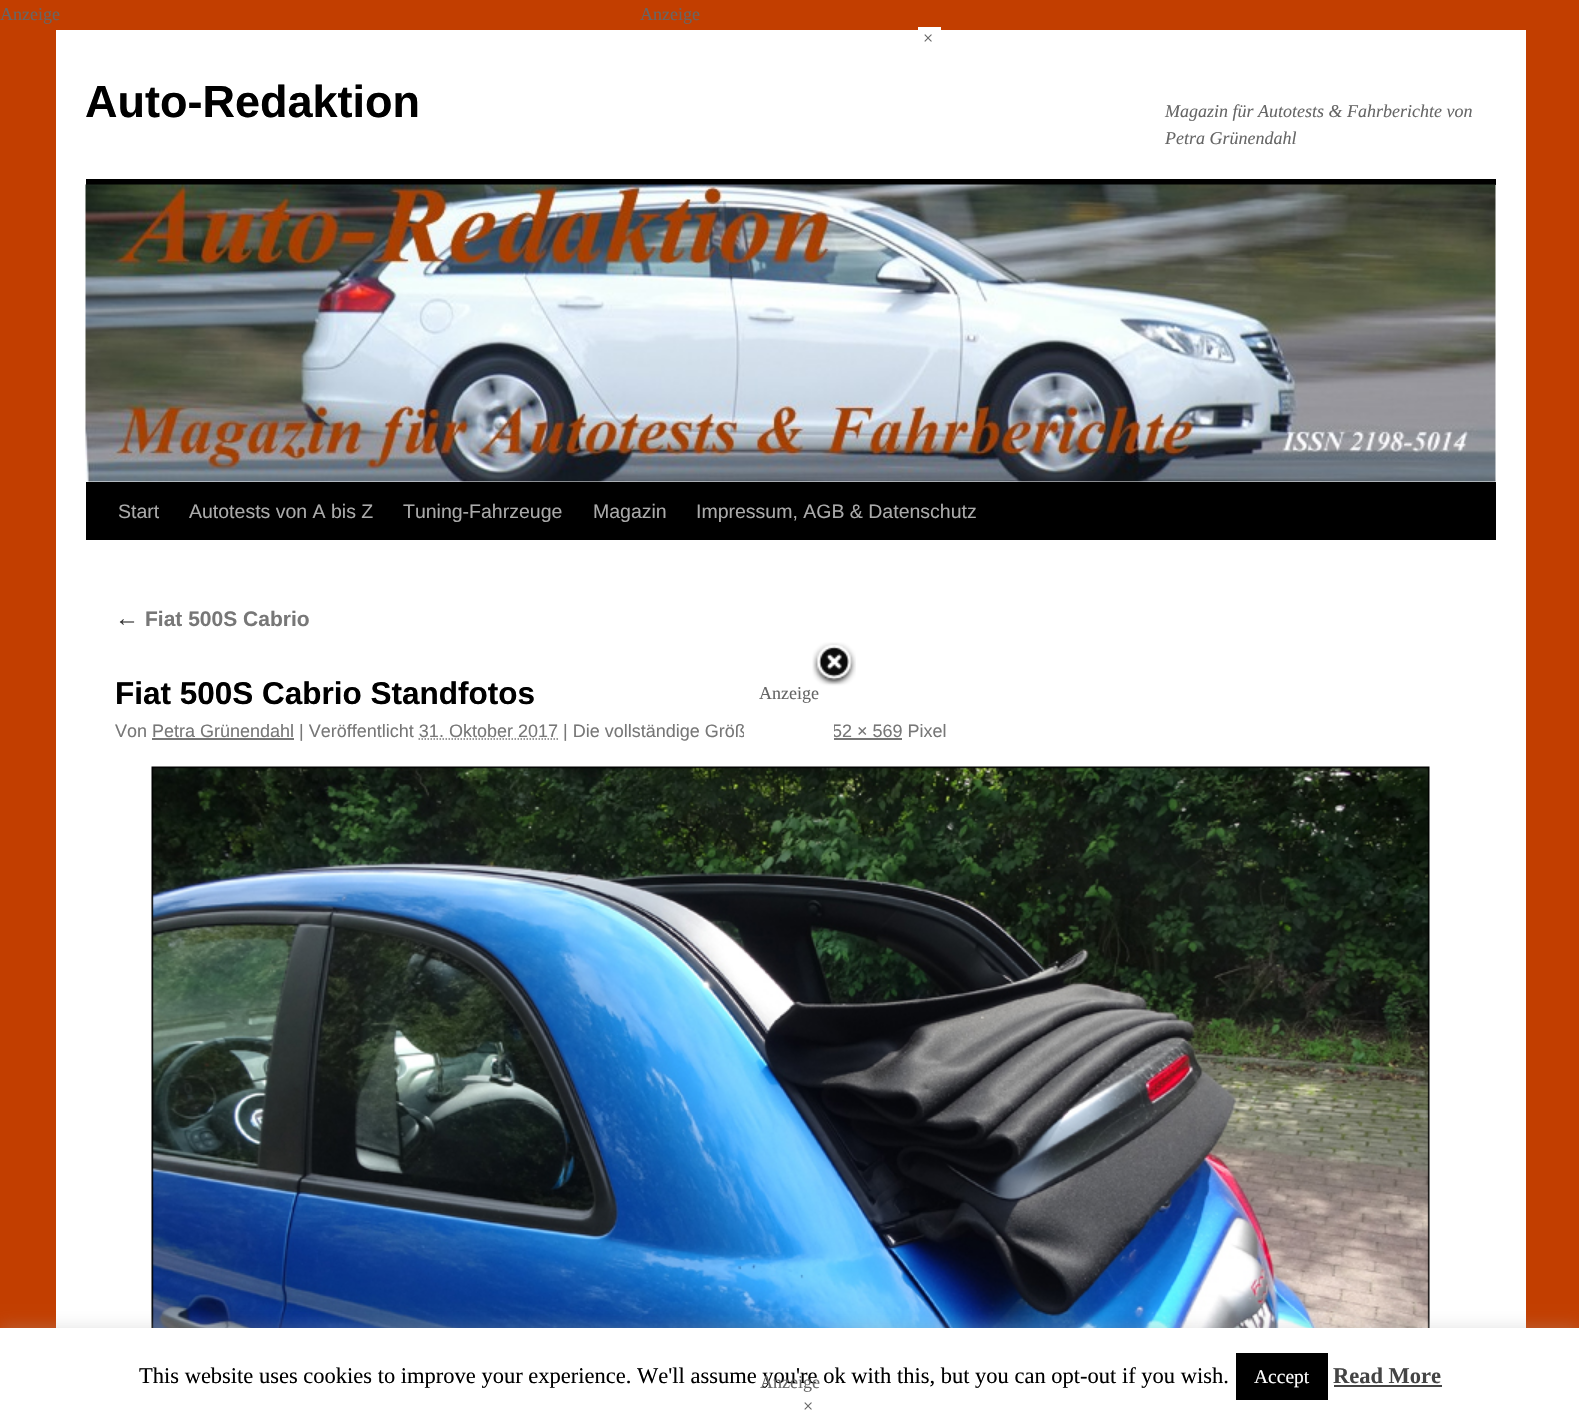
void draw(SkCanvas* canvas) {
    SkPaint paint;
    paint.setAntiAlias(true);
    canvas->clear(0xFFC23E00);
    SkFont font1(fontMgr->matchFamilyStyle("Liberation Serif", SkFontStyle::Normal()), 18);
    font1.setSubpixel(true);
    paint.setColor(0xFF666666);
    canvas->drawString("Anzeige", 0, 20, font1, paint);
    canvas->drawString("Anzeige", 640, 20, font1, paint);
    paint.setColor(0xFFFFFFFF);
    canvas->drawRect(SkRect::MakeXYWH(918, 27, 23, 3), paint);
    canvas->drawRect(SkRect::MakeXYWH(56, 30, 1470, 1298), paint);
    paint.setColor(0xFF666666);
    canvas->drawString("×", 923, 44, font1, paint);
    SkFont font2(fontMgr->matchFamilyStyle("Liberation Sans", SkFontStyle::Bold()), 45);
    font2.setSubpixel(true);
    paint.setColor(0xFF000000);
    canvas->drawString("Auto-Redaktion", 85, 117, font2, paint);
    SkFont font3(fontMgr->matchFamilyStyle("Liberation Serif", SkFontStyle::Italic()), 18);
    font3.setSubpixel(true);
    paint.setColor(0xFF666666);
    canvas->drawString("Magazin für Autotests & Fahrberichte von", 1165, 117, font3, paint);
    canvas->drawString("Petra Grünendahl", 1165, 144, font3, paint);
    paint.setColor(0xFF000000);
    canvas->drawRect(SkRect::MakeXYWH(86, 179, 1410, 6), paint);
    canvas->drawRect(SkRect::MakeXYWH(86, 482, 1410, 58), paint);
    canvas->drawImageRect(SkImages::DeferredFromEncodedData(SkData::MakeFromFileName("img1.png")), SkRect::MakeXYWH(85, 184, 1411, 298), SkSamplingOptions());
    SkFont font4(fontMgr->matchFamilyStyle("Liberation Sans", SkFontStyle::Normal()), 19.5f);
    font4.setSubpixel(true);
    paint.setColor(0xFFAAAAAA);
    canvas->drawString("Start", 118, 518, font4, paint);
    canvas->drawString("Autotests von A bis Z", 189, 518, font4, paint);
    canvas->drawString("Tuning-Fahrzeuge", 403, 518, font4, paint);
    canvas->drawString("Magazin", 593, 518, font4, paint);
    canvas->drawString("Impressum, AGB & Datenschutz", 696, 518, font4, paint);
    SkFont font5(fontMgr->matchFamilyStyle("Liberation Serif", SkFontStyle::Italic()), 24);
    font5.setSubpixel(true);
    paint.setColor(0xFF333333);
    canvas->drawString("←", 115, 626, font5, paint);
    SkFont font6(fontMgr->matchFamilyStyle("Liberation Sans", SkFontStyle::Bold()), 21);
    font6.setSubpixel(true);
    paint.setColor(0xFF777777);
    canvas->drawString("Fiat 500S Cabrio", 145, 626, font6, paint);
    SkFont font7(fontMgr->matchFamilyStyle("Liberation Sans", SkFontStyle::Bold()), 31.5f);
    font7.setSubpixel(true);
    paint.setColor(0xFF000000);
    canvas->drawString("Fiat 500S Cabrio Standfotos", 115, 704, font7, paint);
    SkFont font8(fontMgr->matchFamilyStyle("Liberation Sans", SkFontStyle::Normal()), 18);
    font8.setSubpixel(true);
    paint.setColor(0xFF777777);
    canvas->drawString("Von Petra Grünendahl | Veröffentlicht 31. Oktober 2017 | Die vollständige Größ", 115, 737, font8, paint);
    canvas->drawString("52 × 569 Pixel", 832, 737, font8, paint);
    canvas->drawRect(SkRect::MakeXYWH(834, 738, 68, 2), paint);
    canvas->drawRect(SkRect::MakeXYWH(152, 738, 142, 2), paint);
    paint.setStyle(SkPaint::kStroke_Style);
    paint.setStrokeWidth(1.5f);
    paint.setPathEffect(SkDashPathEffect::Make({{1.5f, 1.5f}}, 0));
    canvas->drawPath(SkPathBuilder().moveTo(418.5f, 739).lineTo(558, 739).detach(), paint);
    paint.setPathEffect(nullptr);
    canvas->drawImageRect(SkImages::DeferredFromEncodedData(SkData::MakeFromFileName("img2.png")), SkRect::MakeXYWH(151, 766, 1279, 562), SkSamplingOptions());
    paint.setStyle(SkPaint::kFill_Style);
    paint.setColor(0xFFFFFFFF);
    canvas->drawRect(SkRect::MakeXYWH(744, 724, 90, 13), paint);
    canvas->drawImageRect(SkImages::DeferredFromEncodedData(SkData::MakeFromFileName("img3.png")), SkRect::MakeXYWH(812, 642, 44, 44), SkSamplingOptions());
    paint.setColor(0xFF666666);
    canvas->drawString("Anzeige", 759, 699, font1, paint);
    paint.setColor(0x4DACABAB);
    paint.setMaskFilter(SkMaskFilter::MakeBlur(kNormal_SkBlurStyle, 7.5f));
    canvas->drawRect(SkRect::MakeXYWH(0, 1326, 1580, 90), paint);
    paint.setMaskFilter(nullptr);
    paint.setColor(0xFFFFFFFF);
    canvas->drawRect(SkRect::MakeXYWH(0, 1328, 1579, 89), paint);
    SkFont font9(fontMgr->matchFamilyStyle("Liberation Serif", SkFontStyle::Normal()), 22.5f);
    font9.setSubpixel(true);
    paint.setColor(0xFF000000);
    canvas->drawString("This website uses cookies to improve your experience. We'll assume you're ok with this, but you can opt-out if you wish.", 139, 1383, font9, paint);
    canvas->drawRect(SkRect::MakeXYWH(1236, 1353, 92, 47), paint);
    SkFont font10(fontMgr->matchFamilyStyle("Liberation Serif", SkFontStyle::Normal()), 19.5f);
    font10.setSubpixel(true);
    paint.setColor(0xFFFFFFFF);
    canvas->drawString("Accept", 1254, 1383, font10, paint);
    SkFont font11(fontMgr->matchFamilyStyle("Liberation Serif", SkFontStyle::Bold()), 22.5f);
    font11.setSubpixel(true);
    paint.setColor(0xFF444444);
    canvas->drawString("Read More", 1333, 1383, font11, paint);
    canvas->drawRect(SkRect::MakeXYWH(1334, 1385, 108, 2), paint);
    paint.setColor(0xFF666666);
    canvas->drawString("Anzeige", 760, 1388, font1, paint);
    canvas->drawString("×", 803, 1412, font1, paint);
}
